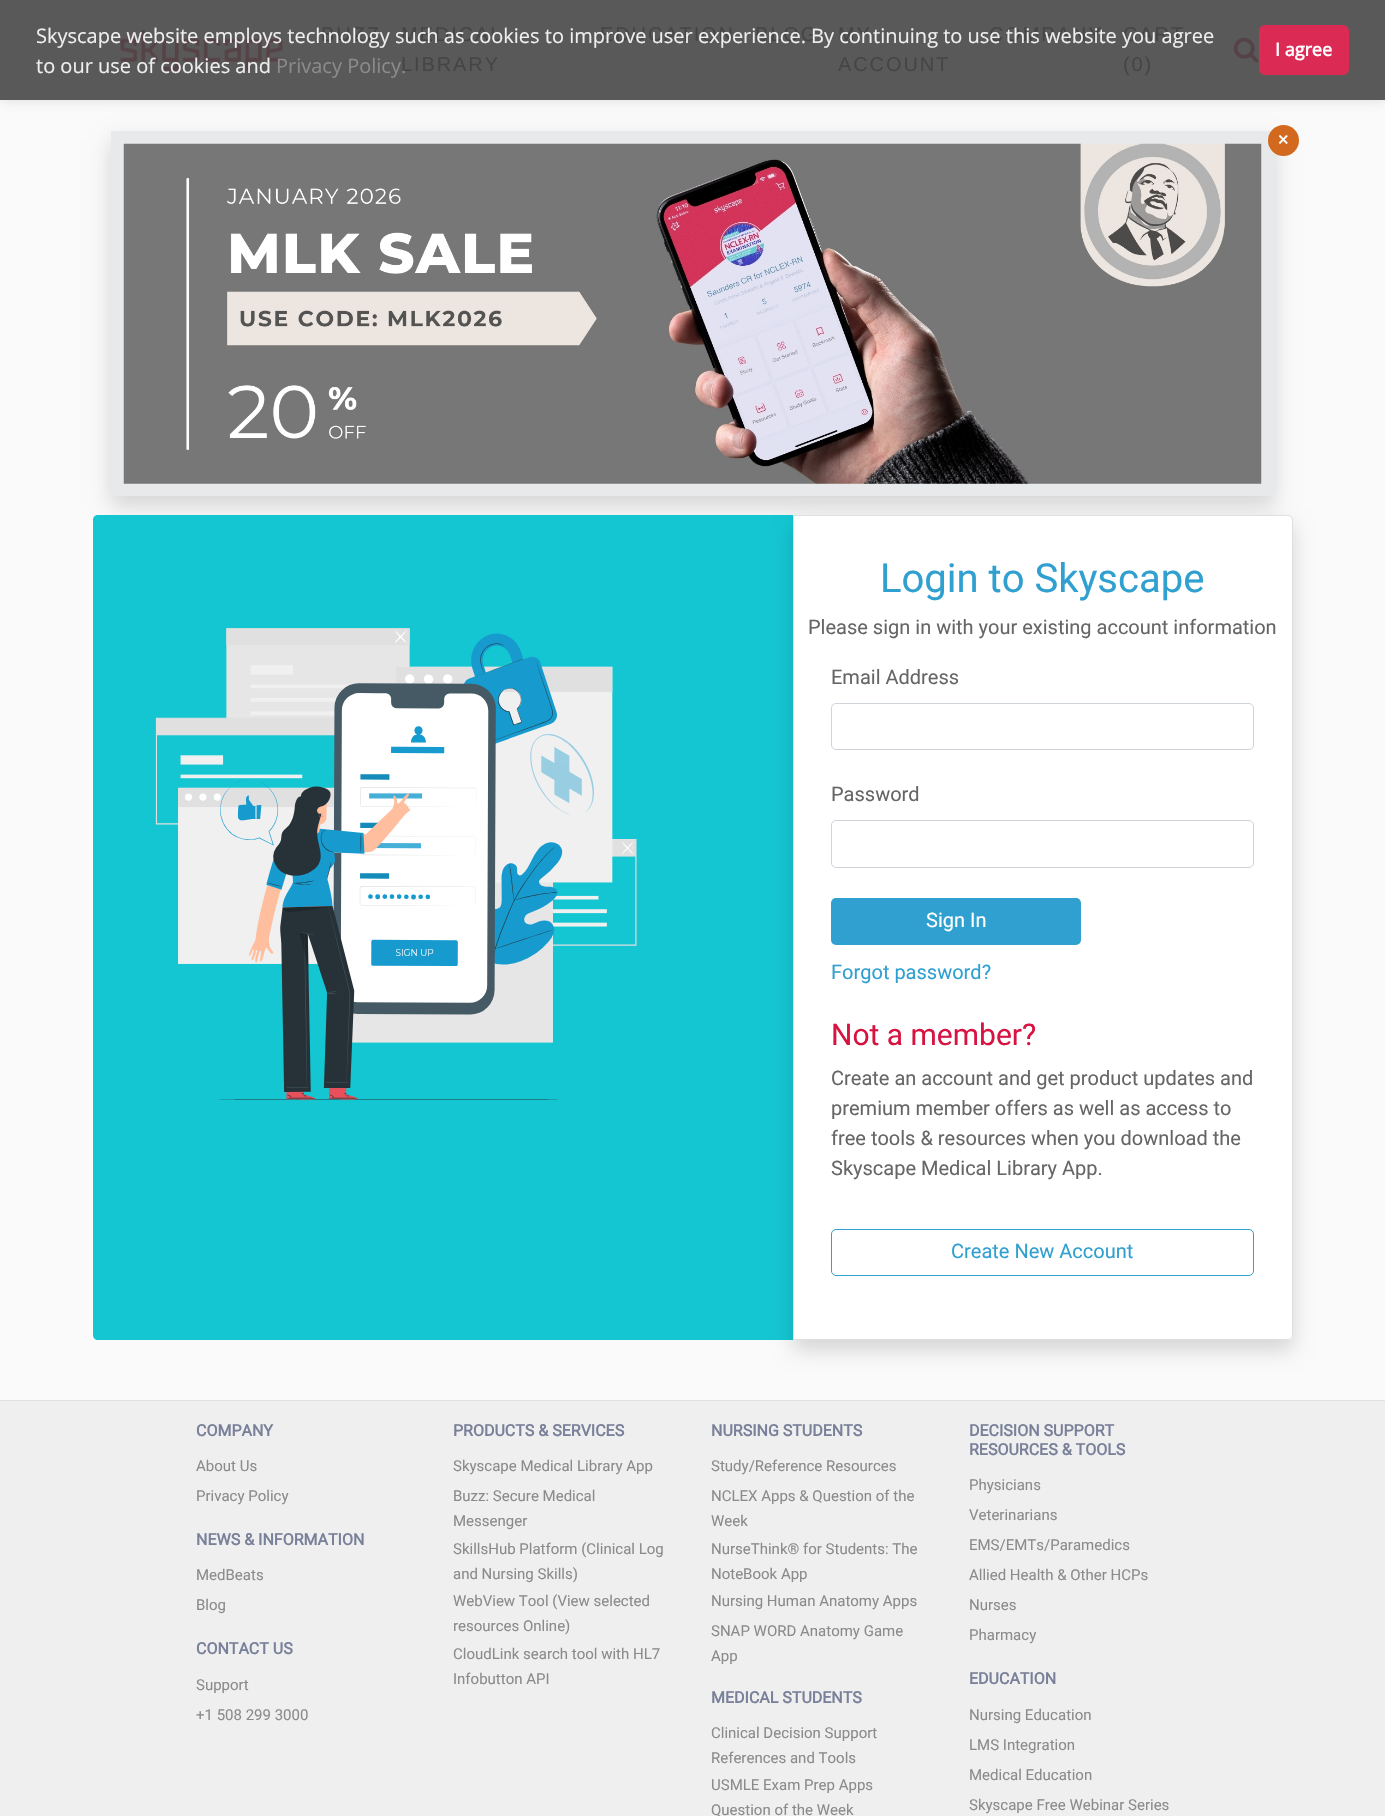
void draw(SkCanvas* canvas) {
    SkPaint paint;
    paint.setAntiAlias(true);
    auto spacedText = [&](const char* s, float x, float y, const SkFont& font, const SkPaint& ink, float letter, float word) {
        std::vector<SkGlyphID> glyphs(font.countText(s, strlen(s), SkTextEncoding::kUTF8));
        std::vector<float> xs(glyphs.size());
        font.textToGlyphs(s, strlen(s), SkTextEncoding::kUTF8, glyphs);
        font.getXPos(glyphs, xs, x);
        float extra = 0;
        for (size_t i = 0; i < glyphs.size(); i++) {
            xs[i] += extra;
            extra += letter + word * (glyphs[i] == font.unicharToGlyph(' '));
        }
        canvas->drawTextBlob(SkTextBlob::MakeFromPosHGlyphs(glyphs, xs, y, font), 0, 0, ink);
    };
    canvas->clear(0xFFFAFAFA);
    paint.setColor(0x33596273);
    paint.setMaskFilter(SkMaskFilter::MakeBlur(kNormal_SkBlurStyle, 6));
    canvas->drawRect(SkRect::MakeXYWH(1, 0, 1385, 100), paint);
    paint.setMaskFilter(nullptr);
    paint.setColor(0xFF595959);
    canvas->drawRect(SkRect::MakeXYWH(0, 0, 1385, 100), paint);
    canvas->drawImageRect(SkImages::DeferredFromEncodedData(SkData::MakeFromFileName("img1.png")), SkRect::MakeXYWH(120, 29, 163, 42), SkSamplingOptions());
    SkFont font1(fontMgr->matchFamilyStyle("Liberation Sans", SkFontStyle::Normal()), 20);
    font1.setSubpixel(true);
    paint.setColor(0xFF454545);
    spacedText("BUZZ", 321, 41, font1, paint, 1.9f, 0);
    spacedText("MEDICAL", 401, 41, font1, paint, 1.9f, 0);
    spacedText("EDUCATION", 600, 41, font1, paint, 1.9f, 0);
    spacedText("BLOG", 755, 41, font1, paint, 1.9f, 0);
    spacedText("MY", 838, 41, font1, paint, 1.9f, 0);
    spacedText("COMPANY", 989, 41, font1, paint, 1.9f, 0);
    spacedText("CART", 1123, 41, font1, paint, 1.9f, 0);
    SkFont font2(fontMgr->matchFamilyStyle("Open Sans", SkFontStyle::Normal()), 20);
    font2.setSubpixel(true);
    paint.setColor(0xFFEFEFEF);
    canvas->drawString("Skyscape website employs technology such as cookies to improve user experience. By continuing to use this website you agree", 36, 43, font2, paint);
    canvas->drawString("to our use of cookies and", 36, 73, font2, paint);
    paint.setColor(0xFF454545);
    spacedText("LIBRARY", 401, 71, font1, paint, 1.9f, 0);
    paint.setColor(0xFF8B8B8B);
    canvas->drawString("Privacy Policy.", 276, 73, font2, paint);
    paint.setColor(0xFFDB2A54);
    canvas->drawRoundRect(SkRect::MakeXYWH(1259, 25, 90, 50), 6, 6, paint);
    SkFont font3(fontMgr->matchFamilyStyle("Open Sans", SkFontStyle::Bold()), 18);
    font3.setSubpixel(true);
    paint.setColor(0xFFFFFFFF);
    canvas->drawString("I agree", 1275, 56, font3, paint);
    paint.setColor(0xFF454545);
    spacedText("ACCOUNT", 838, 71, font1, paint, 1.9f, 0);
    spacedText("(0)", 1123, 71, font1, paint, 1.9f, 0);
    canvas->drawImageRect(SkImages::DeferredFromEncodedData(SkData::MakeFromFileName("img2.png")), SkRect::MakeXYWH(1233, 37, 26, 26), SkSamplingOptions());
    paint.setColor(0x26000000);
    paint.setMaskFilter(SkMaskFilter::MakeBlur(kNormal_SkBlurStyle, 10));
    canvas->drawRect(SkRect::MakeXYWH(111, 141, 1163, 365), paint);
    paint.setMaskFilter(nullptr);
    paint.setColor(0xFFE7E9EB);
    canvas->drawRect(SkRect::MakeXYWH(111, 131, 1163, 365), paint);
    paint.setColor(0xFFD2691E);
    canvas->drawCircle(1283.5f, 140.5f, 15.5f, paint);
    SkFont font4(fontMgr->matchFamilyStyle("Roboto", SkFontStyle::Normal()), 20);
    font4.setSubpixel(true);
    paint.setColor(0xFFFFFFFF);
    canvas->drawString("×", 1278, 146, font4, paint);
    canvas->drawImageRect(SkImages::DeferredFromEncodedData(SkData::MakeFromFileName("img3.png")), SkRect::MakeXYWH(123, 143, 1139, 341), SkSamplingOptions());
    paint.setColor(0xFF14C6D2);
    canvas->drawPath(SkPathBuilder().moveTo(98, 515).lineTo(793, 515).lineTo(793, 1340).lineTo(98, 1340).cubicTo(95, 1340, 93, 1338, 93, 1335).lineTo(93, 520).cubicTo(93, 517, 95, 515, 98, 515).close().detach(), paint);
    canvas->drawImageRect(SkImages::DeferredFromEncodedData(SkData::MakeFromFileName("img4.png")), SkRect::MakeXYWH(155, 628, 482, 472), SkSamplingOptions());
    paint.setColor(0x26000000);
    paint.setMaskFilter(SkMaskFilter::MakeBlur(kNormal_SkBlurStyle, 10));
    canvas->drawRoundRect(SkRect::MakeXYWH(793, 525, 500, 825), 5, 5, paint);
    paint.setMaskFilter(nullptr);
    paint.setColor(0xFFFFFFFF);
    canvas->drawPath(SkPathBuilder().moveTo(793, 515).lineTo(1288, 515).cubicTo(1291, 515, 1293, 517, 1293, 520).lineTo(1293, 1335).cubicTo(1293, 1338, 1291, 1340, 1288, 1340).lineTo(793, 1340).close().detach(), paint);
    paint.setStyle(SkPaint::kStroke_Style);
    paint.setStrokeWidth(1);
    paint.setColor(0x1F000000);
    canvas->drawPath(SkPathBuilder().moveTo(793.5f, 515.5f).lineTo(1288, 515.5f).cubicTo(1290.5f, 515.5f, 1292.5f, 517.5f, 1292.5f, 520).lineTo(1292.5f, 1335).cubicTo(1292.5f, 1337.5f, 1290.5f, 1339.5f, 1288, 1339.5f).lineTo(793.5f, 1339.5f).close().detach(), paint);
    SkFont font5(fontMgr->matchFamilyStyle("Roboto", SkFontStyle::Normal()), 40);
    font5.setSubpixel(true);
    paint.setStyle(SkPaint::kFill_Style);
    paint.setColor(0xFF2FA0D0);
    canvas->drawString("Login to Skyscape", 880, 592, font5, paint);
    paint.setColor(0xFF666666);
    canvas->drawString("Please sign in with your existing account information", 808, 634, font4, paint);
    canvas->drawString("Email Address", 831, 684, font4, paint);
    paint.setStyle(SkPaint::kStroke_Style);
    paint.setColor(0xFFCED4DA);
    canvas->drawRoundRect(SkRect::MakeXYWH(831.5f, 703.5f, 422, 46), 4.5f, 4.5f, paint);
    paint.setStyle(SkPaint::kFill_Style);
    paint.setColor(0xFF666666);
    canvas->drawString("Password", 831, 801, font4, paint);
    paint.setStyle(SkPaint::kStroke_Style);
    paint.setColor(0xFFCED4DA);
    canvas->drawRoundRect(SkRect::MakeXYWH(831.5f, 820.5f, 422, 47), 4.5f, 4.5f, paint);
    paint.setStyle(SkPaint::kFill_Style);
    paint.setColor(0xFF2FA0D0);
    canvas->drawRoundRect(SkRect::MakeXYWH(831, 898, 250, 47), 5, 5, paint);
    paint.setColor(0xFFFFFFFF);
    canvas->drawString("Sign In", 926, 927, font4, paint);
    paint.setColor(0xFF2FA0D0);
    canvas->drawString("Forgot password?", 831, 979, font4, paint);
    SkFont font6(fontMgr->matchFamilyStyle("Roboto", SkFontStyle::Normal()), 30);
    font6.setSubpixel(true);
    paint.setColor(0xFFD71341);
    canvas->drawString("Not a member?", 831, 1045, font6, paint);
    paint.setColor(0xFF666666);
    canvas->drawString("Create an account and get product updates and", 831, 1085, font4, paint);
    canvas->drawString("premium member offers as well as access to", 831, 1115, font4, paint);
    canvas->drawString("free tools & resources when you download the", 831, 1145, font4, paint);
    canvas->drawString("Skyscape Medical Library App.", 831, 1175, font4, paint);
    paint.setStyle(SkPaint::kStroke_Style);
    paint.setColor(0xFF2FA0D0);
    canvas->drawRoundRect(SkRect::MakeXYWH(831.5f, 1229.5f, 422, 46), 4.5f, 4.5f, paint);
    paint.setStyle(SkPaint::kFill_Style);
    canvas->drawString("Create New Account", 951, 1258, font4, paint);
    paint.setColor(0xFFE1E1E1);
    canvas->drawRect(SkRect::MakeXYWH(0, 1400, 1385, 1), paint);
    paint.setColor(0xFFEFEFEF);
    canvas->drawRect(SkRect::MakeXYWH(0, 1401, 1385, 415), paint);
    SkFont font7(fontMgr->matchFamilyStyle("Roboto", SkFontStyle::Bold()), 16);
    font7.setSubpixel(true);
    paint.setColor(0xFF798099);
    canvas->drawString("COMPANY", 196, 1436, font7, paint);
    SkFont font8(fontMgr->matchFamilyStyle("Roboto", SkFontStyle::Normal()), 15);
    font8.setSubpixel(true);
    paint.setColor(0xFF8B8B8B);
    canvas->drawString("About Us", 196, 1471, font8, paint);
    canvas->drawString("Privacy Policy", 196, 1501, font8, paint);
    paint.setColor(0xFF798099);
    canvas->drawString("NEWS & INFORMATION", 196, 1545, font7, paint);
    paint.setColor(0xFF8B8B8B);
    canvas->drawString("MedBeats", 196, 1580, font8, paint);
    canvas->drawString("Blog", 196, 1610, font8, paint);
    paint.setColor(0xFF798099);
    canvas->drawString("CONTACT US", 196, 1654, font7, paint);
    paint.setColor(0xFF8B8B8B);
    canvas->drawString("Support", 196, 1690, font8, paint);
    canvas->drawString("+1 508 299 3000", 196, 1720, font8, paint);
    paint.setColor(0xFF798099);
    canvas->drawString("PRODUCTS & SERVICES", 453, 1436, font7, paint);
    paint.setColor(0xFF8B8B8B);
    canvas->drawString("Skyscape Medical Library App", 453, 1471, font8, paint);
    canvas->drawString("Buzz: Secure Medical", 453, 1501, font8, paint);
    canvas->drawString("Messenger", 453, 1526, font8, paint);
    canvas->drawString("SkillsHub Platform (Clinical Log", 453, 1554, font8, paint);
    canvas->drawString("and Nursing Skills)", 453, 1579, font8, paint);
    canvas->drawString("WebView Tool (View selected", 453, 1606, font8, paint);
    canvas->drawString("resources Online)", 453, 1631, font8, paint);
    canvas->drawString("CloudLink search tool with HL7", 453, 1659, font8, paint);
    canvas->drawString("Infobutton API", 453, 1684, font8, paint);
    paint.setColor(0xFF798099);
    canvas->drawString("NURSING STUDENTS", 711, 1436, font7, paint);
    paint.setColor(0xFF8B8B8B);
    canvas->drawString("Study/Reference Resources", 711, 1471, font8, paint);
    canvas->drawString("NCLEX Apps & Question of the", 711, 1501, font8, paint);
    canvas->drawString("Week", 711, 1526, font8, paint);
    canvas->drawString("NurseThink® for Students: The", 711, 1554, font8, paint);
    canvas->drawString("NoteBook App", 711, 1579, font8, paint);
    canvas->drawString("Nursing Human Anatomy Apps", 711, 1606, font8, paint);
    canvas->drawString("SNAP WORD Anatomy Game", 711, 1636, font8, paint);
    canvas->drawString("App", 711, 1661, font8, paint);
    paint.setColor(0xFF798099);
    canvas->drawString("MEDICAL STUDENTS", 711, 1703, font7, paint);
    paint.setColor(0xFF8B8B8B);
    canvas->drawString("Clinical Decision Support", 711, 1738, font8, paint);
    canvas->drawString("References and Tools", 711, 1763, font8, paint);
    canvas->drawString("USMLE Exam Prep Apps", 711, 1790, font8, paint);
    canvas->drawString("Question of the Week", 711, 1815, font8, paint);
    paint.setColor(0xFF798099);
    canvas->drawString("DECISION SUPPORT", 969, 1436, font7, paint);
    canvas->drawString("RESOURCES & TOOLS", 969, 1455, font7, paint);
    paint.setColor(0xFF8B8B8B);
    canvas->drawString("Physicians", 969, 1490, font8, paint);
    canvas->drawString("Veterinarians", 969, 1520, font8, paint);
    canvas->drawString("EMS/EMTs/Paramedics", 969, 1550, font8, paint);
    canvas->drawString("Allied Health & Other HCPs", 969, 1580, font8, paint);
    canvas->drawString("Nurses", 969, 1610, font8, paint);
    canvas->drawString("Pharmacy", 969, 1640, font8, paint);
    paint.setColor(0xFF798099);
    canvas->drawString("EDUCATION", 969, 1684, font7, paint);
    paint.setColor(0xFF8B8B8B);
    canvas->drawString("Nursing Education", 969, 1720, font8, paint);
    canvas->drawString("LMS Integration", 969, 1750, font8, paint);
    canvas->drawString("Medical Education", 969, 1780, font8, paint);
    canvas->drawString("Skyscape Free Webinar Series", 969, 1810, font8, paint);
}
